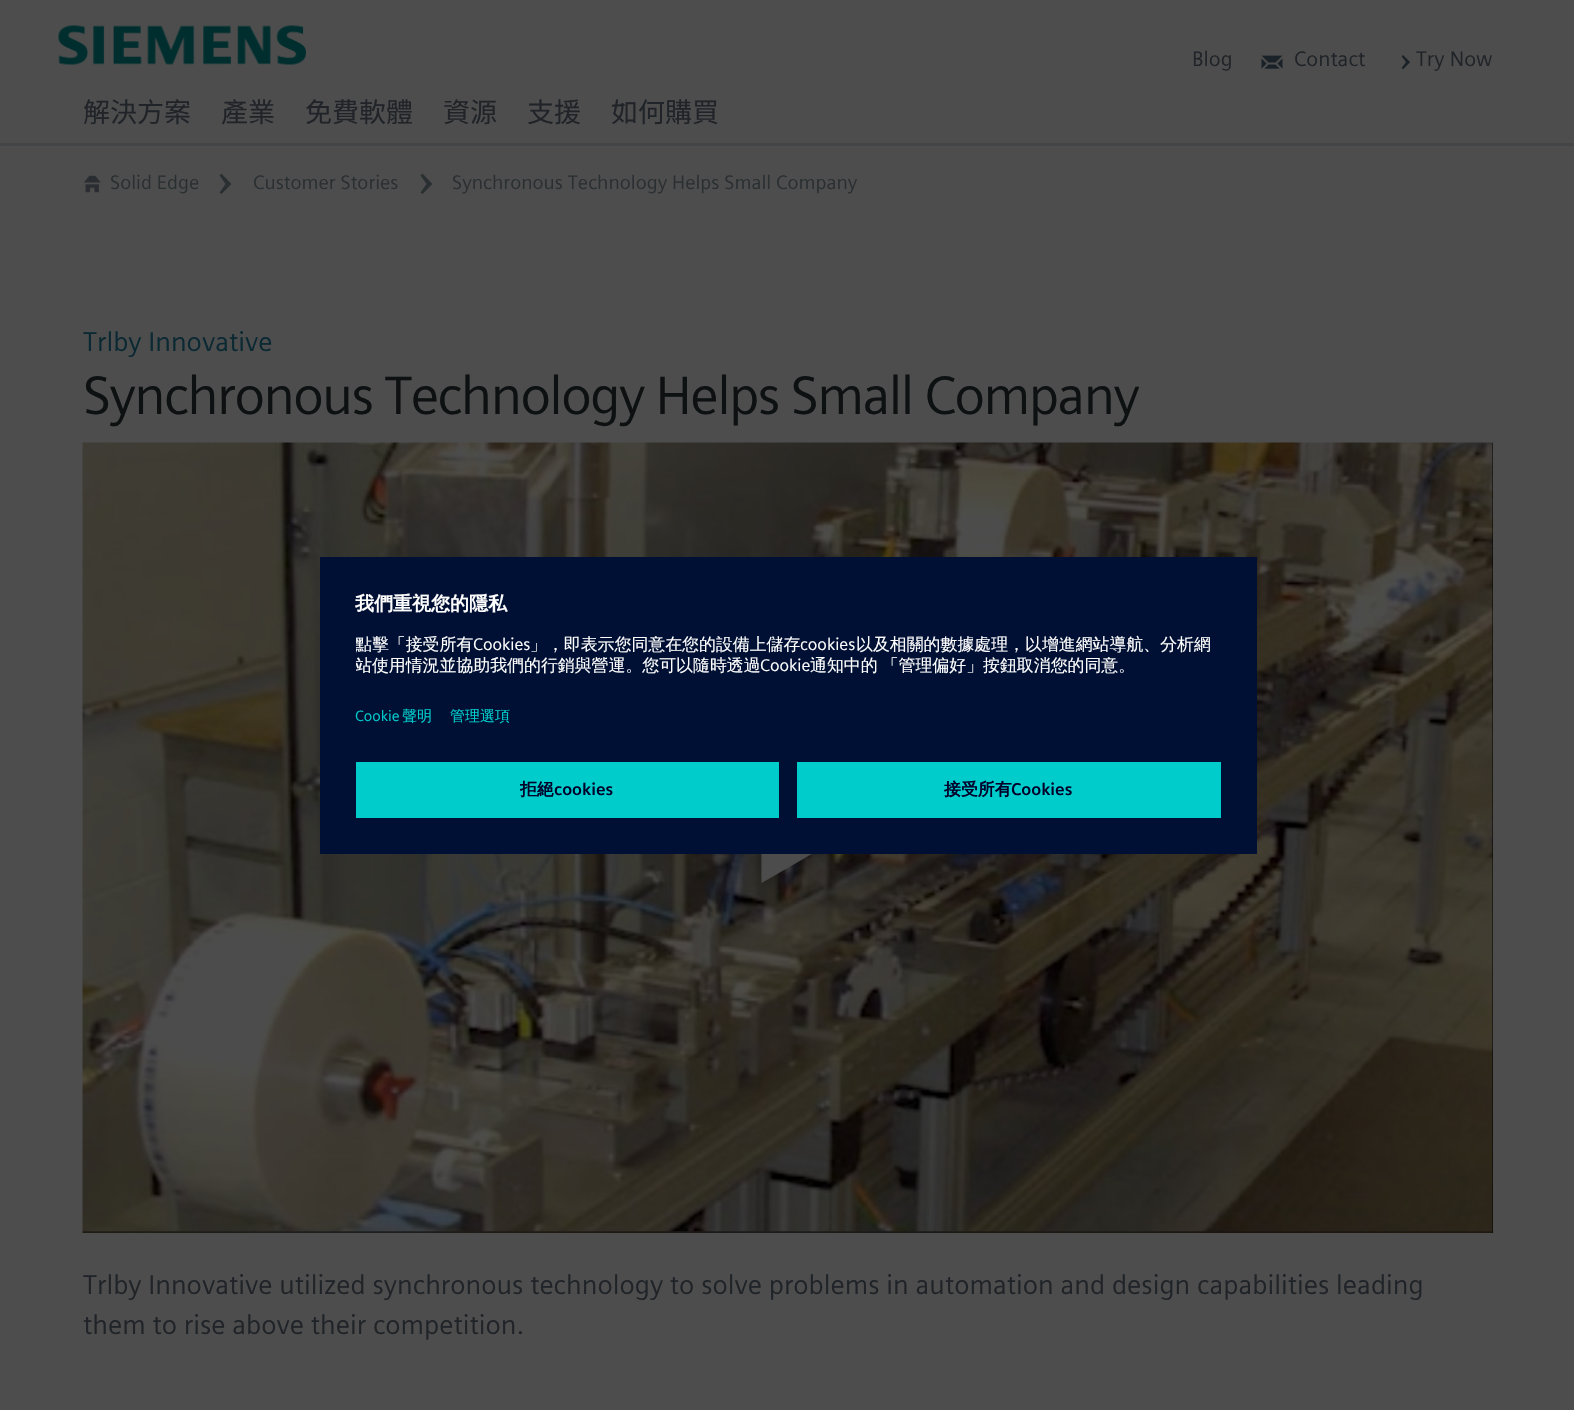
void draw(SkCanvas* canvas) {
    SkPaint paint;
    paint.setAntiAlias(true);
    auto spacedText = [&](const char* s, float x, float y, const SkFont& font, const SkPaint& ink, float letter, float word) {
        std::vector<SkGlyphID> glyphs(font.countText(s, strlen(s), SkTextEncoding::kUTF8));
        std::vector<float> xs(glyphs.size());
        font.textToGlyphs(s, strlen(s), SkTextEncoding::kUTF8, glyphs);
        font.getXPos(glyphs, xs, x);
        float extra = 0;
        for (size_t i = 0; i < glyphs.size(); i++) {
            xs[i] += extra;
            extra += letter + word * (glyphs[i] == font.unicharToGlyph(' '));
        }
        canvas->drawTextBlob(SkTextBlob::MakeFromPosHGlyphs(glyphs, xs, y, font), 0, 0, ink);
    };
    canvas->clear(0xFF4D4D4D);
    paint.setColor(0xFF434547);
    canvas->drawRect(SkRect::MakeXYWH(0, 143, 1574, 3), paint);
    canvas->drawImageRect(SkImages::DeferredFromEncodedData(SkData::MakeFromFileName("img1.png")), SkRect::MakeXYWH(58, 25, 248, 40), SkSamplingOptions());
    SkFont font1(fontMgr->matchFamilyStyle("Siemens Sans", SkFontStyle::Normal()), 21);
    font1.setSubpixel(true);
    paint.setColor(0xFF202428);
    canvas->drawString("Blog", 1192, 66, font1, paint);
    canvas->drawImageRect(SkImages::DeferredFromEncodedData(SkData::MakeFromFileName("img2.png")), SkRect::MakeXYWH(1261, 55, 22, 14), SkSamplingOptions());
    canvas->drawString("Contact", 1294, 66, font1, paint);
    canvas->drawImageRect(SkImages::DeferredFromEncodedData(SkData::MakeFromFileName("img3.png")), SkRect::MakeXYWH(1401, 55, 10, 15), SkSamplingOptions());
    canvas->drawString("Try Now", 1416, 66, font1, paint);
    SkFont font2(fontMgr->matchFamilyStyle("Noto Sans CJK TC", SkFontStyle::Normal()), 27);
    font2.setSubpixel(true);
    canvas->drawString("解決方案", 83, 122, font2, paint);
    canvas->drawString("產業", 221, 122, font2, paint);
    canvas->drawString("免費軟體", 305, 122, font2, paint);
    canvas->drawString("資源", 443, 122, font2, paint);
    canvas->drawString("支援", 527, 122, font2, paint);
    canvas->drawString("如何購買", 611, 122, font2, paint);
    canvas->drawImageRect(SkImages::DeferredFromEncodedData(SkData::MakeFromFileName("img4.png")), SkRect::MakeXYWH(83, 175, 18, 18), SkSamplingOptions());
    SkFont font3(fontMgr->matchFamilyStyle("Siemens Sans", SkFontStyle::Normal()), 19.5f);
    font3.setSubpixel(true);
    paint.setColor(0xFF2A2F32);
    canvas->drawString("Solid Edge", 110, 189, font3, paint);
    canvas->drawPath(SkPathBuilder().moveTo(221.5f, 173.5f).lineTo(219.5f, 175.5f).lineTo(225.5f, 184).lineTo(219.5f, 192.5f).lineTo(221.5f, 194).lineTo(231.5f, 184).close().detach(), paint);
    canvas->drawString("Customer Stories", 253, 189, font3, paint);
    canvas->drawPath(SkPathBuilder().moveTo(422.5f, 173.5f).lineTo(420.5f, 175.5f).lineTo(426.5f, 184).lineTo(420.5f, 192.5f).lineTo(422.5f, 194).lineTo(432.5f, 184).close().detach(), paint);
    canvas->drawString("Synchronous Technology Helps Small Company", 452, 189, font3, paint);
    SkFont font4(fontMgr->matchFamilyStyle("Siemens Sans", SkFontStyle::Normal()), 27);
    font4.setSubpixel(true);
    paint.setColor(0xFF0B2933);
    canvas->drawString("Trlby Innovative", 83, 351, font4, paint);
    SkFont font5(fontMgr->matchFamilyStyle("Siemens Sans", SkFontStyle::Normal()), 54);
    font5.setSubpixel(true);
    paint.setColor(0xFF0E1112);
    spacedText("Synchronous Technology Helps Small Company", 83, 414, font5, paint, -1.6f, 0);
    paint.setColor(0xFF000000);
    canvas->drawRect(SkRect::MakeXYWH(1492, 443, 1, 790), paint);
    canvas->drawImageRect(SkImages::DeferredFromEncodedData(SkData::MakeFromFileName("img5.png")), SkRect::MakeXYWH(82, 442, 1411, 791), SkSamplingOptions());
    canvas->drawImageRect(SkImages::DeferredFromEncodedData(SkData::MakeFromFileName("img6.png")), SkRect::MakeXYWH(748, 854, 88, 36), SkSamplingOptions());
    paint.setColor(0xFF202428);
    canvas->drawString("Trlby Innovative utilized synchronous technology to solve problems in automation and design capabilities leading", 83, 1294, font4, paint);
    canvas->drawString("them to rise above their competition.", 83, 1334, font4, paint);
    paint.setColor(0xFF001034);
    canvas->drawRect(SkRect::MakeXYWH(320, 557, 937, 297), paint);
    SkFont font6(fontMgr->matchFamilyStyle("WenQuanYi Zen Hei", SkFontStyle::Bold()), 19);
    font6.setSubpixel(true);
    paint.setColor(0xFFFFFFFF);
    canvas->drawString("我們重視您的隱私", 355, 610, font6, paint);
    canvas->save();
    canvas->clipRect(SkRect::MakeXYWH(356, 629, 865, 54));
    SkFont font7(fontMgr->matchFamilyStyle("WenQuanYi Zen Hei", SkFontStyle(500, SkFontStyle::kNormal_Width, SkFontStyle::kUpright_Slant)), 16.9f);
    font7.setSubpixel(true);
    canvas->drawString("點擊「接受所有", 355, 650, font7, paint);
    canvas->restore();
    SkFont font8(fontMgr->matchFamilyStyle("Siemens Sans", SkFontStyle::Normal()), 16.9f);
    font8.setSubpixel(true);
    canvas->drawString("Cookies", 473, 650, font8, paint);
    canvas->drawString("」，即表示您同意在您的設備上儲存", 530, 650, font7, paint);
    canvas->drawString("cookies", 800, 650, font8, paint);
    canvas->drawString("以及相關的數據處理，以增進網站導航、分析網", 856, 650, font7, paint);
    canvas->save();
    canvas->clipRect(SkRect::MakeXYWH(356, 629, 865, 54));
    canvas->drawString("站使用情況並協助我們的行銷與營運。您可以隨時透過", 355, 671, font7, paint);
    canvas->restore();
    canvas->drawString("Cookie", 760, 671, font8, paint);
    spacedText("通知中的 「管理偏好」按鈕取消您的同意。", 810, 671, font7, paint, 0, -1);
    SkFont font9(fontMgr->matchFamilyStyle("Siemens Sans", SkFontStyle::Normal()), 15);
    font9.setSubpixel(true);
    paint.setColor(0xFF00CCCC);
    canvas->drawString("Cookie", 355, 721, font9, paint);
    SkFont font10(fontMgr->matchFamilyStyle("WenQuanYi Zen Hei", SkFontStyle(500, SkFontStyle::kNormal_Width, SkFontStyle::kUpright_Slant)), 15);
    font10.setSubpixel(true);
    canvas->drawString("聲明", 402, 721, font10, paint);
    canvas->drawString("管理選項", 450, 721, font10, paint);
    canvas->drawRect(SkRect::MakeXYWH(356, 762, 423, 56), paint);
    SkFont font11(fontMgr->matchFamilyStyle("WenQuanYi Zen Hei", SkFontStyle::Bold()), 16.9f);
    font11.setSubpixel(true);
    paint.setColor(0xFF000028);
    canvas->drawString("拒絕", 520, 795, font11, paint);
    SkFont font12(fontMgr->matchFamilyStyle("Siemens Sans", SkFontStyle::Bold()), 16.9f);
    font12.setSubpixel(true);
    canvas->drawString("cookies", 554, 795, font12, paint);
    paint.setColor(0xFF00CCCC);
    canvas->drawRect(SkRect::MakeXYWH(797, 762, 424, 56), paint);
    paint.setColor(0xFF000028);
    canvas->drawString("接受所有", 944, 795, font11, paint);
    canvas->drawString("Cookies", 1011, 795, font12, paint);
}
